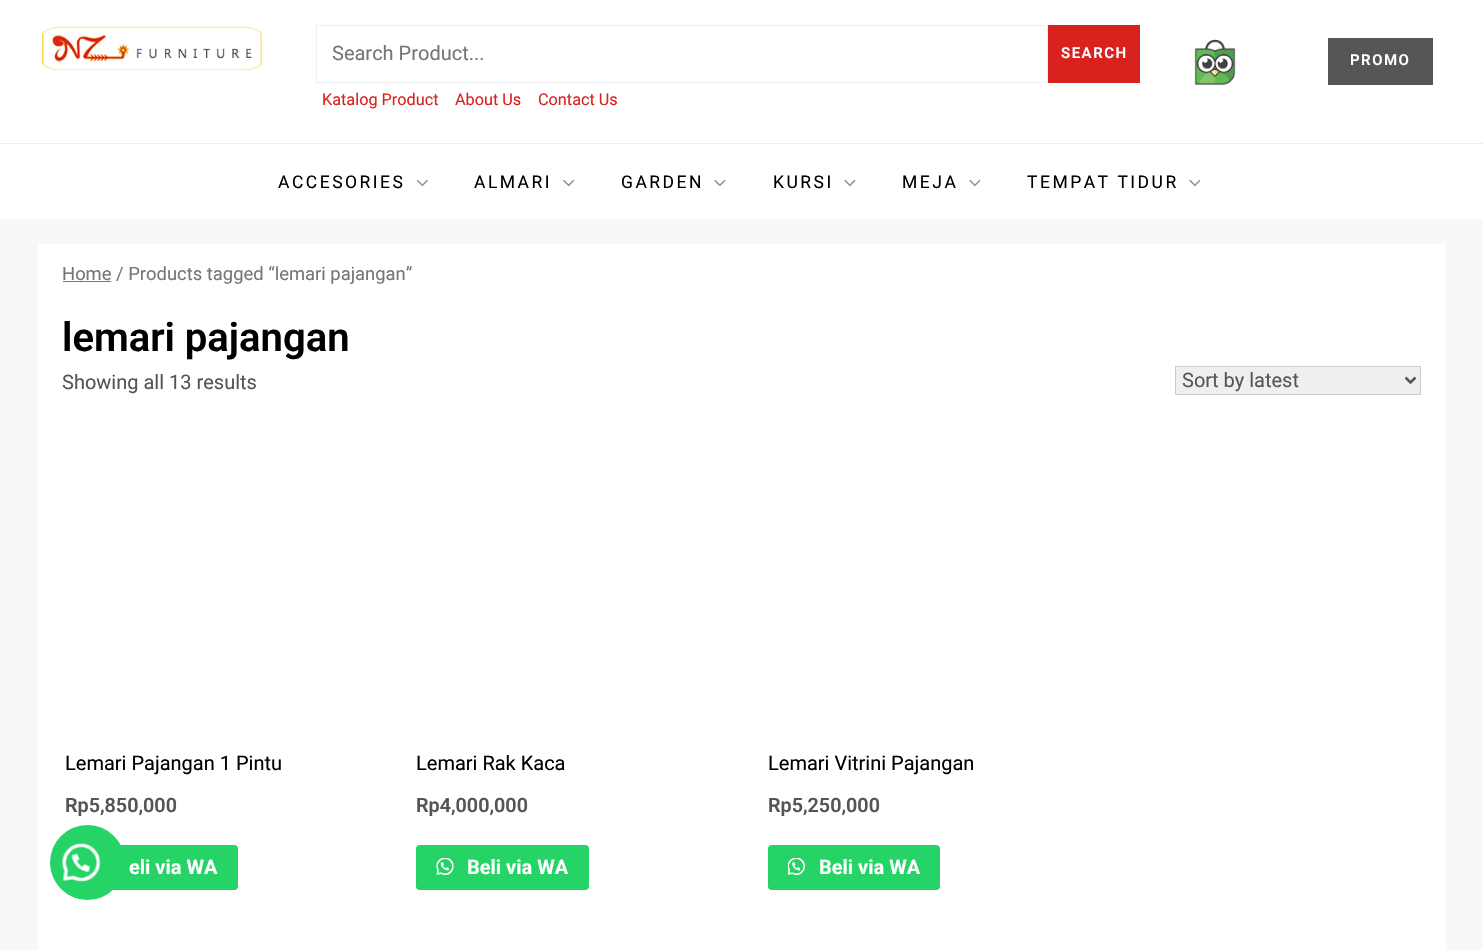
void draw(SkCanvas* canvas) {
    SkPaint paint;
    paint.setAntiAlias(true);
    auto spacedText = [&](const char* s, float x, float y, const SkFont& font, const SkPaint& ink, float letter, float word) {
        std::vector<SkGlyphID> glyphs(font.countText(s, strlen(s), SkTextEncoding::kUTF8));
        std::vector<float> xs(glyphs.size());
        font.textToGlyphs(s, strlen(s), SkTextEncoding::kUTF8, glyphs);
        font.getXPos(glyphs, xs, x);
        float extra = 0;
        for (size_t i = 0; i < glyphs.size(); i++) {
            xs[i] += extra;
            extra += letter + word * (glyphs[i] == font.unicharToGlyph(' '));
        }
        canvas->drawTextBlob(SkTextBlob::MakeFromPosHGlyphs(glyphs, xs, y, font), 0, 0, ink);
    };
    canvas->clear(0xFFF8F8F8);
    paint.setColor(0xFFFFFFFF);
    canvas->drawRect(SkRect::MakeXYWH(0, 0, 1483, 219), paint);
    canvas->drawImageRect(SkImages::DeferredFromEncodedData(SkData::MakeFromFileName("img1.png")), SkRect::MakeXYWH(42, 26, 220, 45), SkSamplingOptions());
    paint.setStyle(SkPaint::kStroke_Style);
    paint.setStrokeWidth(1);
    paint.setColor(0xFFEEEEEE);
    canvas->drawRect(SkRect::MakeXYWH(316.5f, 25.5f, 731, 57), paint);
    SkFont font1(fontMgr->matchFamilyStyle("Roboto", SkFontStyle::Normal()), 20);
    font1.setSubpixel(true);
    paint.setStyle(SkPaint::kFill_Style);
    paint.setColor(0xFF767676);
    canvas->drawString("Search Product...", 332, 60, font1, paint);
    paint.setColor(0xFFD9221E);
    canvas->drawRect(SkRect::MakeXYWH(1048, 25, 92, 58), paint);
    SkFont font2(fontMgr->matchFamilyStyle("Roboto", SkFontStyle(600, SkFontStyle::kNormal_Width, SkFontStyle::kUpright_Slant)), 15);
    font2.setSubpixel(true);
    paint.setColor(0xFFFFFFFF);
    spacedText("SEARCH", 1061, 58, font2, paint, 1.5f, 0);
    SkFont font3(fontMgr->matchFamilyStyle("Roboto", SkFontStyle::Normal()), 16.25f);
    font3.setSubpixel(true);
    paint.setColor(0xFFD9221E);
    canvas->drawString("Katalog Product", 322, 105, font3, paint);
    canvas->drawString("About Us", 455, 105, font3, paint);
    canvas->drawString("Contact Us", 538, 105, font3, paint);
    canvas->drawImageRect(SkImages::DeferredFromEncodedData(SkData::MakeFromFileName("img2.png")), SkRect::MakeXYWH(1194, 39, 42, 47), SkSamplingOptions());
    paint.setColor(0xFF565656);
    canvas->drawRect(SkRect::MakeXYWH(1328, 38, 105, 47), paint);
    paint.setColor(0xFFFFFFFF);
    spacedText("PROMO", 1350, 65, font2, paint, 1.5f, 0);
    paint.setColor(0xFFEEEEEE);
    canvas->drawRect(SkRect::MakeXYWH(0, 143, 1483, 1), paint);
    SkFont font4(fontMgr->matchFamilyStyle("Roboto", SkFontStyle::Normal()), 17.5f);
    font4.setSubpixel(true);
    paint.setColor(0xFF000000);
    spacedText("ACCESORIES", 278, 188, font4, paint, 2.5f, 0);
    canvas->drawImageRect(SkImages::DeferredFromEncodedData(SkData::MakeFromFileName("img3.png")), SkRect::MakeXYWH(416, 179, 12, 8), SkSamplingOptions());
    spacedText("ALMARI", 474, 188, font4, paint, 2.5f, 0);
    canvas->drawImageRect(SkImages::DeferredFromEncodedData(SkData::MakeFromFileName("img4.png")), SkRect::MakeXYWH(563, 179, 12, 8), SkSamplingOptions());
    spacedText("GARDEN", 621, 188, font4, paint, 2.5f, 0);
    canvas->drawImageRect(SkImages::DeferredFromEncodedData(SkData::MakeFromFileName("img5.png")), SkRect::MakeXYWH(714, 179, 12, 8), SkSamplingOptions());
    spacedText("KURSI", 773, 188, font4, paint, 2.5f, 0);
    canvas->drawImageRect(SkImages::DeferredFromEncodedData(SkData::MakeFromFileName("img5.png")), SkRect::MakeXYWH(844, 179, 12, 8), SkSamplingOptions());
    spacedText("MEJA", 902, 188, font4, paint, 2.5f, 0);
    canvas->drawImageRect(SkImages::DeferredFromEncodedData(SkData::MakeFromFileName("img5.png")), SkRect::MakeXYWH(969, 179, 12, 8), SkSamplingOptions());
    spacedText("TEMPAT TIDUR", 1027, 188, font4, paint, 2.5f, 0);
    canvas->drawImageRect(SkImages::DeferredFromEncodedData(SkData::MakeFromFileName("img5.png")), SkRect::MakeXYWH(1189, 179, 12, 8), SkSamplingOptions());
    paint.setColor(0xFFFFFFFF);
    canvas->drawRect(SkRect::MakeXYWH(38, 244, 1408, 706), paint);
    paint.setColor(0xFF767676);
    canvas->drawRect(SkRect::MakeXYWH(63, 281, 48, 1), paint);
    SkFont font5(fontMgr->matchFamilyStyle("Roboto", SkFontStyle::Normal()), 18.4f);
    font5.setSubpixel(true);
    canvas->drawString("Home / Products tagged “lemari pajangan”", 62, 280, font5, paint);
    SkFont font6(fontMgr->matchFamilyStyle("Roboto", SkFontStyle(600, SkFontStyle::kNormal_Width, SkFontStyle::kUpright_Slant)), 40);
    font6.setSubpixel(true);
    paint.setColor(0xFF000000);
    canvas->drawString("lemari pajangan", 62, 351, font6, paint);
    paint.setColor(0xFF555555);
    canvas->drawString("Showing all 13 results", 62, 389, font1, paint);
    paint.setColor(0xFFEFEFEF);
    canvas->drawRect(SkRect::MakeXYWH(1175.5f, 366.5f, 245, 28), paint);
    paint.setStyle(SkPaint::kStroke_Style);
    paint.setColor(0xFFCCCCCC);
    canvas->drawRect(SkRect::MakeXYWH(1175.5f, 366.5f, 245, 28), paint);
    paint.setStrokeWidth(2.5f);
    paint.setColor(0xFF555555);
    canvas->drawPath(SkPathBuilder().moveTo(1405.5f, 377.5f).lineTo(1410.5f, 382.5f).lineTo(1415.5f, 377.5f).detach(), paint);
    paint.setStyle(SkPaint::kFill_Style);
    canvas->drawString("Sort by latest", 1182, 387, font1, paint);
    paint.setColor(0xFF000000);
    canvas->drawString("Lemari Pajangan 1 Pintu", 65, 770, font1, paint);
    SkFont font7(fontMgr->matchFamilyStyle("Roboto", SkFontStyle(600, SkFontStyle::kNormal_Width, SkFontStyle::kUpright_Slant)), 19.75f);
    font7.setSubpixel(true);
    paint.setColor(0xFF555555);
    canvas->drawString("Rp5,850,000", 65, 812, font7, paint);
    paint.setColor(0xFF25D366);
    canvas->drawRoundRect(SkRect::MakeXYWH(65, 845, 173, 45), 4, 4, paint);
    SkFont font8(fontMgr->matchFamilyStyle("Roboto", SkFontStyle::Bold()), 20);
    font8.setSubpixel(true);
    paint.setColor(0xFFFFFFFF);
    canvas->drawString("eli via WA", 129, 874, font8, paint);
    paint.setColor(0xFF000000);
    canvas->drawString("Lemari Rak Kaca", 416, 770, font1, paint);
    paint.setColor(0xFF555555);
    canvas->drawString("Rp4,000,000", 416, 812, font7, paint);
    paint.setColor(0xFF25D366);
    canvas->drawRoundRect(SkRect::MakeXYWH(416, 845, 173, 45), 4, 4, paint);
    canvas->drawImageRect(SkImages::DeferredFromEncodedData(SkData::MakeFromFileName("img6.png")), SkRect::MakeXYWH(436, 858, 18, 17), SkSamplingOptions());
    paint.setColor(0xFFFFFFFF);
    canvas->drawString("Beli via WA", 467, 874, font8, paint);
    paint.setColor(0xFF000000);
    canvas->drawString("Lemari Vitrini Pajangan", 768, 770, font1, paint);
    paint.setColor(0xFF555555);
    canvas->drawString("Rp5,250,000", 768, 812, font7, paint);
    paint.setColor(0xFF25D366);
    canvas->drawRoundRect(SkRect::MakeXYWH(768, 845, 172, 45), 4, 4, paint);
    canvas->drawImageRect(SkImages::DeferredFromEncodedData(SkData::MakeFromFileName("img7.png")), SkRect::MakeXYWH(788, 858, 17, 17), SkSamplingOptions());
    paint.setColor(0xFFFFFFFF);
    canvas->drawString("Beli via WA", 819, 874, font8, paint);
    paint.setColor(0xFF25D366);
    canvas->drawCircle(87.5f, 862.5f, 37.5f, paint);
    canvas->drawImageRect(SkImages::DeferredFromEncodedData(SkData::MakeFromFileName("img8.png")), SkRect::MakeXYWH(62, 843, 39, 39), SkSamplingOptions());
}
